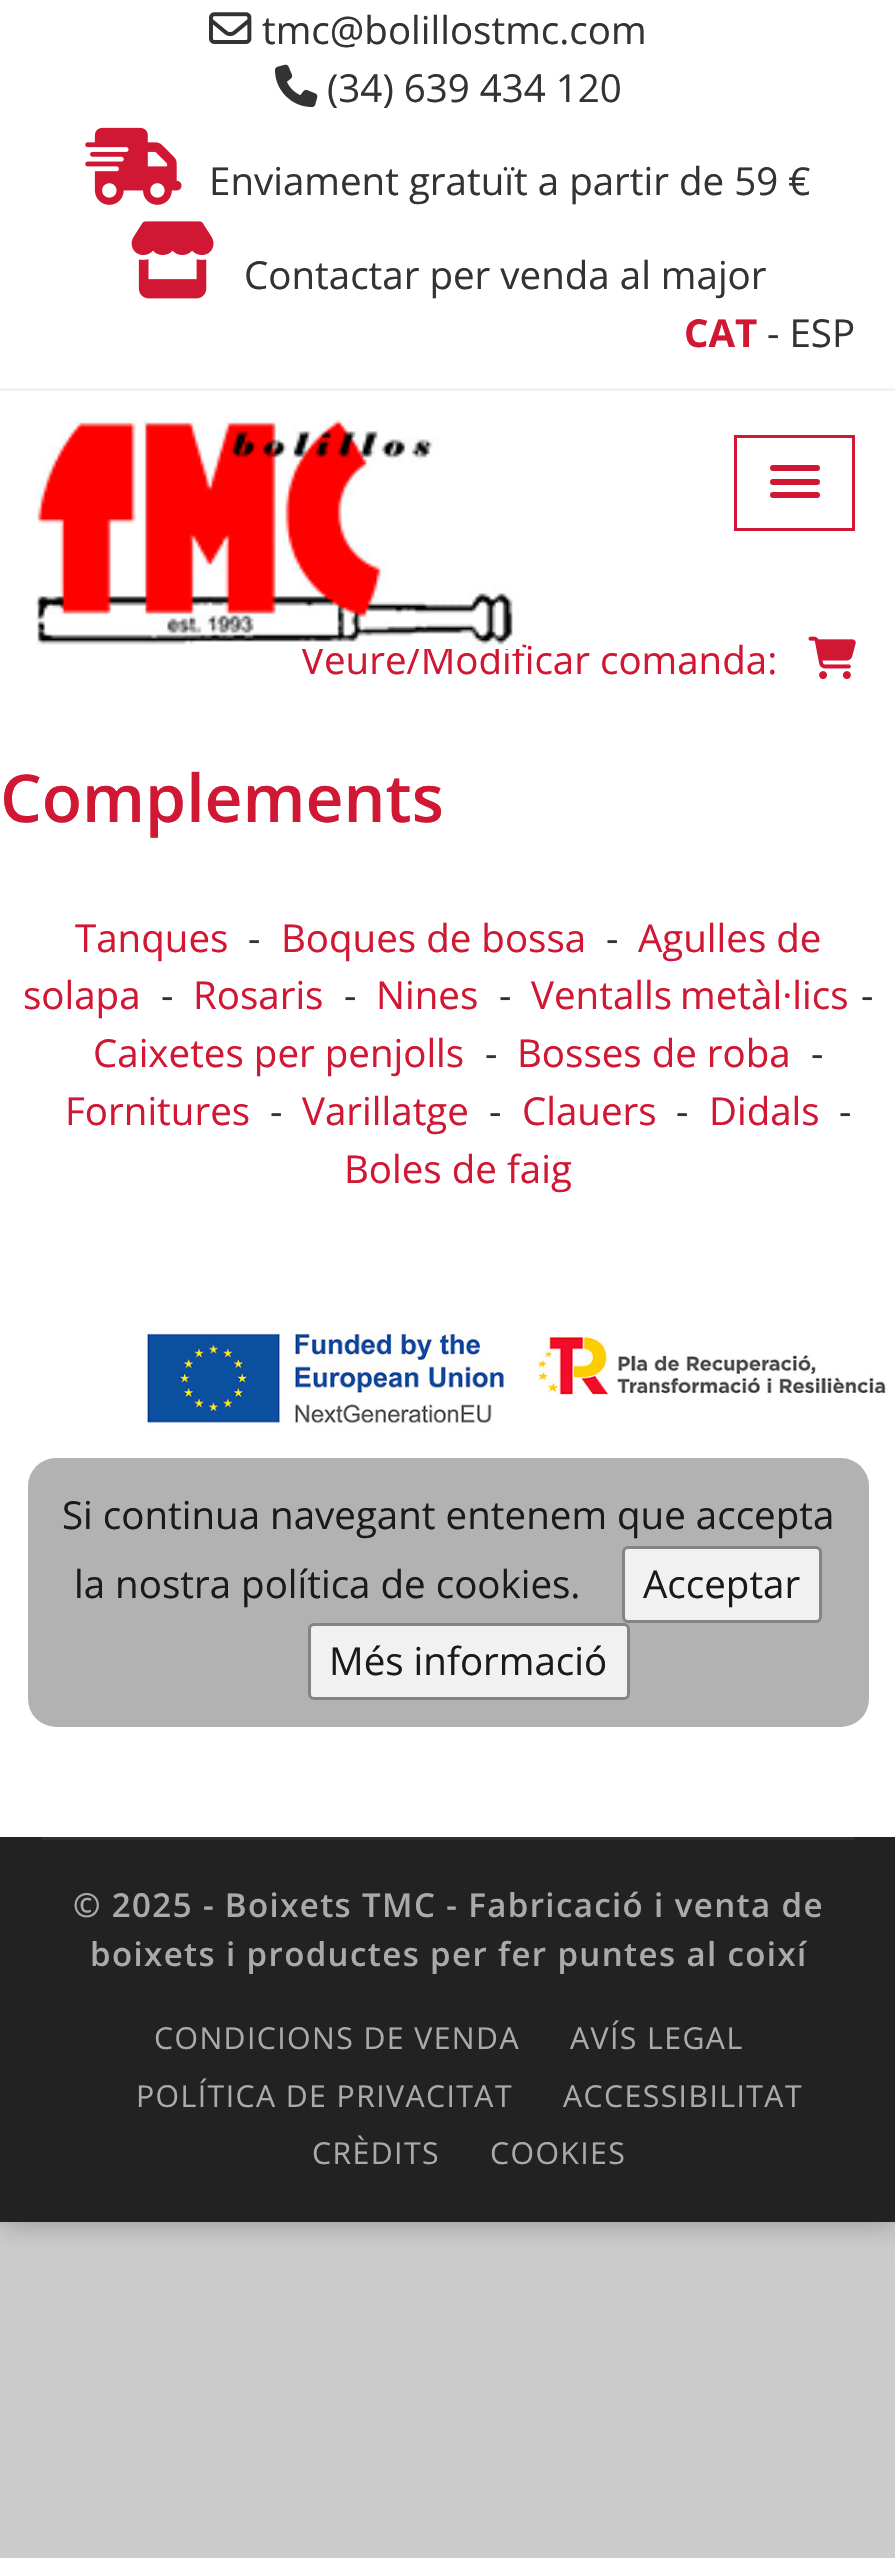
void draw(SkCanvas* canvas) {
    SkPaint paint;
    paint.setAntiAlias(true);
    auto spacedText = [&](const char* s, float x, float y, const SkFont& font, const SkPaint& ink, float letter, float word) {
        std::vector<SkGlyphID> glyphs(font.countText(s, strlen(s), SkTextEncoding::kUTF8));
        std::vector<float> xs(glyphs.size());
        font.textToGlyphs(s, strlen(s), SkTextEncoding::kUTF8, glyphs);
        font.getXPos(glyphs, xs, x);
        float extra = 0;
        for (size_t i = 0; i < glyphs.size(); i++) {
            xs[i] += extra;
            extra += letter + word * (glyphs[i] == font.unicharToGlyph(' '));
        }
        canvas->drawTextBlob(SkTextBlob::MakeFromPosHGlyphs(glyphs, xs, y, font), 0, 0, ink);
    };
    canvas->clear(0xFFCCCCCC);
    paint.setColor(0x4D000000);
    paint.setMaskFilter(SkMaskFilter::MakeBlur(kNormal_SkBlurStyle, 14));
    canvas->drawRect(SkRect::MakeXYWH(0, 0, 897, 2222), paint);
    paint.setMaskFilter(nullptr);
    paint.setColor(0xFFFFFFFF);
    canvas->drawRect(SkRect::MakeXYWH(0, 0, 895, 1837), paint);
    paint.setColor(0xFFF2F2F2);
    canvas->drawRect(SkRect::MakeXYWH(0, 388, 895, 3), paint);
    canvas->drawImageRect(SkImages::DeferredFromEncodedData(SkData::MakeFromFileName("img1.png")), SkRect::MakeXYWH(209, 12, 43, 32), SkSamplingOptions());
    SkFont font1(fontMgr->matchFamilyStyle("Open Sans", SkFontStyle::Normal()), 38.5f);
    font1.setSubpixel(true);
    paint.setColor(0xFF333333);
    canvas->drawString("tmc@bolillostmc.com", 262, 44, font1, paint);
    canvas->drawImageRect(SkImages::DeferredFromEncodedData(SkData::MakeFromFileName("img2.png")), SkRect::MakeXYWH(275, 64, 43, 43), SkSamplingOptions());
    canvas->drawString("(34) 639 434 120", 327, 102, font1, paint);
    canvas->drawImageRect(SkImages::DeferredFromEncodedData(SkData::MakeFromFileName("img3.png")), SkRect::MakeXYWH(85, 127, 97, 78), SkSamplingOptions());
    canvas->drawString("Enviament gratuït a partir de 59 €", 209, 195, font1, paint);
    canvas->drawImageRect(SkImages::DeferredFromEncodedData(SkData::MakeFromFileName("img4.png")), SkRect::MakeXYWH(131, 221, 83, 78), SkSamplingOptions());
    canvas->drawString("Contactar per venda al major", 244, 289, font1, paint);
    SkFont font2(fontMgr->matchFamilyStyle("Open Sans", SkFontStyle::Bold()), 38.5f);
    font2.setSubpixel(true);
    paint.setColor(0xFFD01733);
    canvas->drawString("CAT", 684, 347, font2, paint);
    paint.setColor(0xFF333333);
    canvas->drawString("- ESP", 767, 347, font1, paint);
    paint.setColor(0xFFD01733);
    canvas->drawString("Veure/Modificar comanda:", 301, 674, font1, paint);
    canvas->drawImageRect(SkImages::DeferredFromEncodedData(SkData::MakeFromFileName("img5.png")), SkRect::MakeXYWH(35, 420, 488, 229), SkSamplingOptions());
    paint.setStyle(SkPaint::kStroke_Style);
    paint.setStrokeWidth(3);
    canvas->drawRect(SkRect::MakeXYWH(735.5f, 436.5f, 118, 93), paint);
    paint.setStyle(SkPaint::kFill_Style);
    canvas->drawRoundRect(SkRect::MakeXYWH(770, 465, 50, 6), 3, 3, paint);
    canvas->drawRoundRect(SkRect::MakeXYWH(770, 479, 50, 6), 3, 3, paint);
    canvas->drawRoundRect(SkRect::MakeXYWH(770, 492, 50, 6), 3, 3, paint);
    canvas->drawImageRect(SkImages::DeferredFromEncodedData(SkData::MakeFromFileName("img6.png")), SkRect::MakeXYWH(808, 636, 48, 43), SkSamplingOptions());
    SkFont font3(fontMgr->matchFamilyStyle("Open Sans", SkFontStyle(600, SkFontStyle::kNormal_Width, SkFontStyle::kUpright_Slant)), 66);
    font3.setSubpixel(true);
    canvas->drawString("Complements", 0, 822, font3, paint);
    canvas->drawString("Tanques", 75, 952, font1, paint);
    paint.setColor(0xFF333333);
    canvas->drawString("-", 248, 952, font1, paint);
    paint.setColor(0xFFD01733);
    canvas->drawString("Boques de bossa", 281, 952, font1, paint);
    paint.setColor(0xFF333333);
    canvas->drawString("-", 606, 952, font1, paint);
    paint.setColor(0xFFD01733);
    canvas->drawString("Agulles de", 638, 952, font1, paint);
    canvas->drawString("solapa", 23, 1009, font1, paint);
    paint.setColor(0xFF333333);
    canvas->drawString("-", 161, 1009, font1, paint);
    paint.setColor(0xFFD01733);
    canvas->drawString("Rosaris", 193, 1009, font1, paint);
    paint.setColor(0xFF333333);
    canvas->drawString("-", 344, 1009, font1, paint);
    paint.setColor(0xFFD01733);
    canvas->drawString("Nines", 376, 1009, font1, paint);
    paint.setColor(0xFF333333);
    canvas->drawString("-", 499, 1009, font1, paint);
    paint.setColor(0xFFD01733);
    spacedText("Ventalls metàl·lics", 531, 1009, font1, paint, 0, -2);
    paint.setColor(0xFF333333);
    canvas->drawString("-", 861, 1009, font1, paint);
    paint.setColor(0xFFD01733);
    canvas->drawString("Caixetes per penjolls", 93, 1067, font1, paint);
    paint.setColor(0xFF333333);
    canvas->drawString("-", 485, 1067, font1, paint);
    paint.setColor(0xFFD01733);
    canvas->drawString("Bosses de roba", 517, 1067, font1, paint);
    paint.setColor(0xFF333333);
    canvas->drawString("-", 811, 1067, font1, paint);
    paint.setColor(0xFFD01733);
    canvas->drawString("Fornitures", 65, 1125, font1, paint);
    paint.setColor(0xFF333333);
    canvas->drawString("-", 270, 1125, font1, paint);
    paint.setColor(0xFFD01733);
    canvas->drawString("Varillatge", 302, 1125, font1, paint);
    paint.setColor(0xFF333333);
    canvas->drawString("-", 489, 1125, font1, paint);
    paint.setColor(0xFFD01733);
    canvas->drawString("Clauers", 522, 1125, font1, paint);
    paint.setColor(0xFF333333);
    canvas->drawString("-", 676, 1125, font1, paint);
    paint.setColor(0xFFD01733);
    canvas->drawString("Didals", 709, 1125, font1, paint);
    paint.setColor(0xFF333333);
    canvas->drawString("-", 839, 1125, font1, paint);
    paint.setColor(0xFFD01733);
    canvas->drawString("Boles de faig", 344, 1183, font1, paint);
    canvas->drawImageRect(SkImages::DeferredFromEncodedData(SkData::MakeFromFileName("img7.png")), SkRect::MakeXYWH(145, 1328, 744, 98), SkSamplingOptions());
    paint.setColor(0xFFB2B2B2);
    canvas->drawRoundRect(SkRect::MakeXYWH(28, 1458, 841, 269), 28, 28, paint);
    paint.setColor(0xFF1A1A1A);
    canvas->drawString("Si continua navegant entenem que accepta", 62, 1529, font1, paint);
    canvas->drawString("la nostra política de cookies.", 74, 1598, font1, paint);
    paint.setColor(0xFFF1F1F1);
    canvas->drawRoundRect(SkRect::MakeXYWH(623.5f, 1547.5f, 197, 74), 4.5f, 4.5f, paint);
    paint.setStyle(SkPaint::kStroke_Style);
    paint.setColor(0xFF848484);
    canvas->drawRoundRect(SkRect::MakeXYWH(623.5f, 1547.5f, 197, 74), 4.5f, 4.5f, paint);
    paint.setStyle(SkPaint::kFill_Style);
    paint.setColor(0xFF1A1A1A);
    canvas->drawString("Acceptar", 643, 1598, font1, paint);
    paint.setColor(0xFFF1F1F1);
    canvas->drawRoundRect(SkRect::MakeXYWH(309.5f, 1624.5f, 319, 74), 4.5f, 4.5f, paint);
    paint.setStyle(SkPaint::kStroke_Style);
    paint.setColor(0xFF848484);
    canvas->drawRoundRect(SkRect::MakeXYWH(309.5f, 1624.5f, 319, 74), 4.5f, 4.5f, paint);
    paint.setStyle(SkPaint::kFill_Style);
    paint.setColor(0xFF1A1A1A);
    canvas->drawString("Més informació", 329, 1675, font1, paint);
    paint.setColor(0xFF222222);
    canvas->drawRect(SkRect::MakeXYWH(0, 1837, 895, 385), paint);
    paint.setColor(0xFF2F2F2F);
    canvas->drawRect(SkRect::MakeXYWH(41, 1837, 814, 3), paint);
    SkFont font4(fontMgr->matchFamilyStyle("Open Sans", SkFontStyle(600, SkFontStyle::kNormal_Width, SkFontStyle::kUpright_Slant)), 33);
    font4.setSubpixel(true);
    paint.setColor(0xFFAAAAAA);
    spacedText("© 2025 - Boixets TMC - Fabricació i venta de", 73, 1917, font4, paint, 1.4f, 0);
    spacedText("boixets i productes per fer puntes al coixí", 90, 1966, font4, paint, 1.4f, 0);
    SkFont font5(fontMgr->matchFamilyStyle("Open Sans", SkFontStyle::Normal()), 30.25f);
    font5.setSubpixel(true);
    spacedText("CONDICIONS DE VENDA", 154, 2049, font5, paint, 1.4f, 0);
    spacedText("AVÍS LEGAL", 570, 2049, font5, paint, 1.4f, 0);
    spacedText("POLÍTICA DE PRIVACITAT", 136, 2107, font5, paint, 1.4f, 0);
    spacedText("ACCESSIBILITAT", 563, 2107, font5, paint, 1.4f, 0);
    spacedText("CRÈDITS", 312, 2164, font5, paint, 1.4f, 0);
    spacedText("COOKIES", 490, 2164, font5, paint, 1.4f, 0);
}
